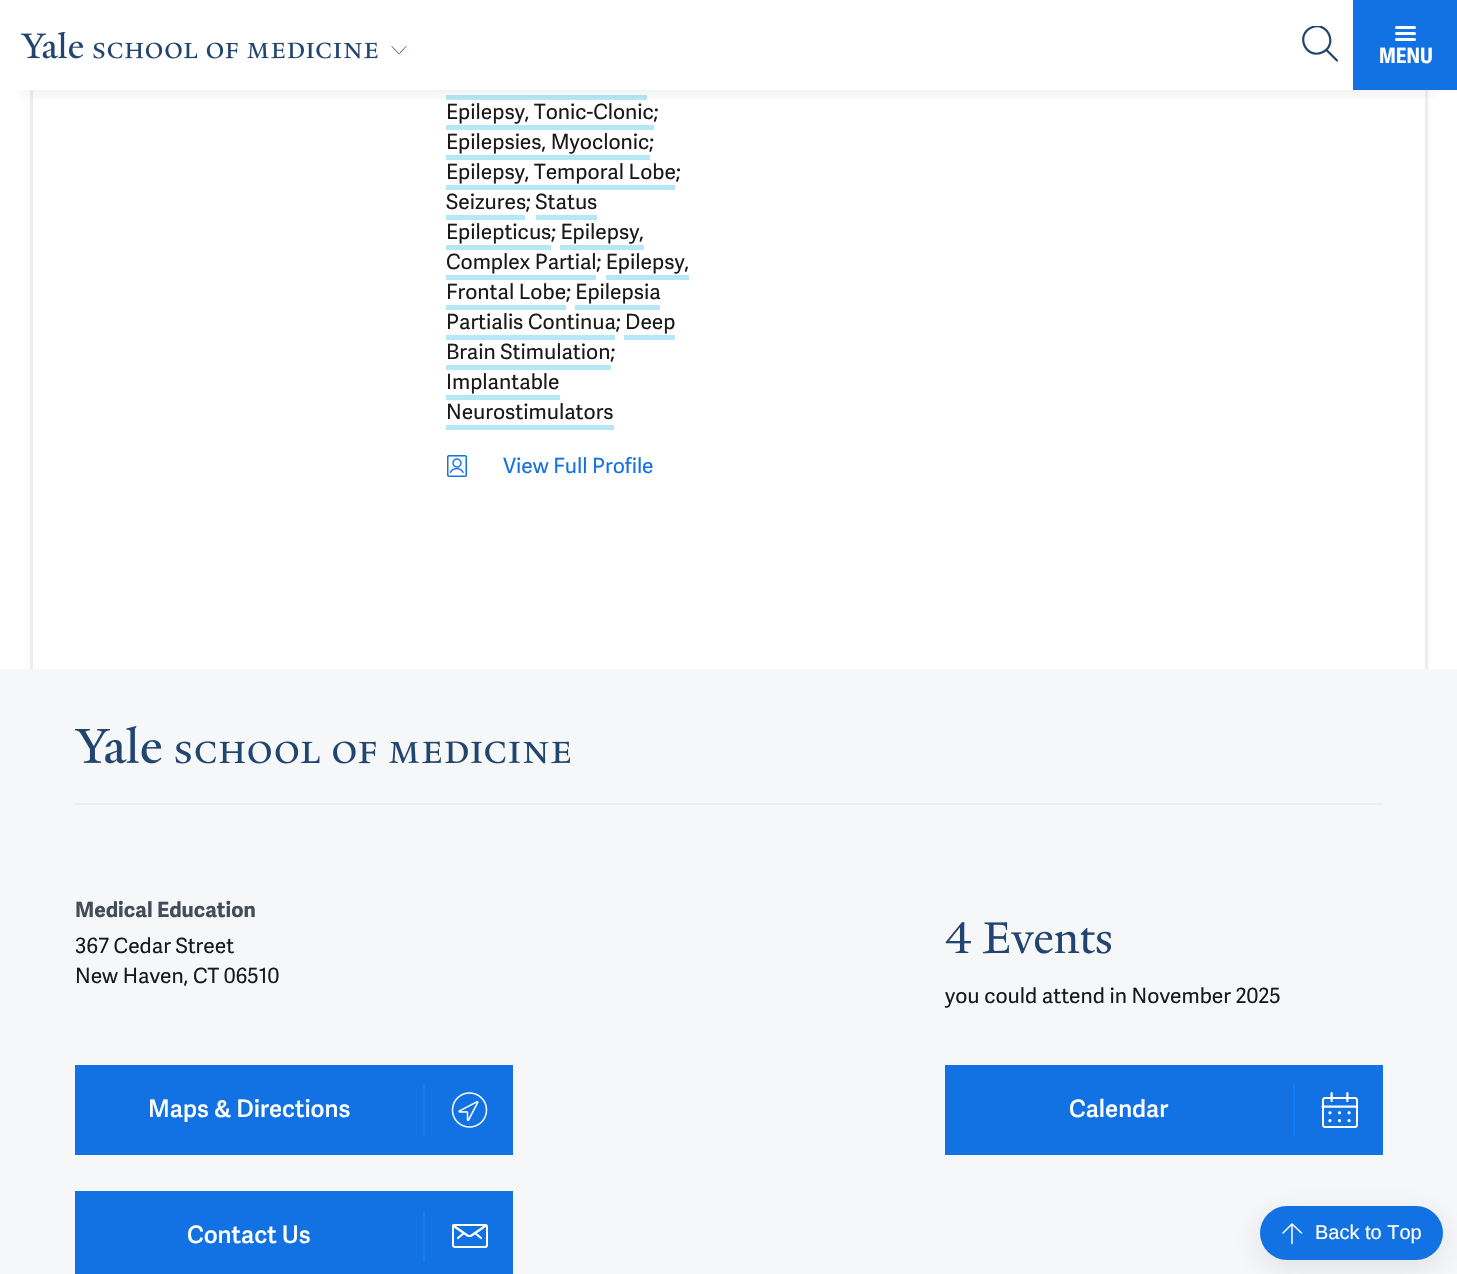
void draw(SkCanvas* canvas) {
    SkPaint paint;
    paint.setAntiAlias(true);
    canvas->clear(0xFFFFFFFF);
    paint.setColor(0xFFEBEDF0);
    canvas->drawRect(SkRect::MakeXYWH(1425, 90, 3, 579), paint);
    canvas->drawRect(SkRect::MakeXYWH(30, 90, 3, 579), paint);
    paint.setColor(0xFFB4E7F8);
    canvas->drawRect(SkRect::MakeXYWH(446, 95, 201, 5), paint);
    canvas->save();
    canvas->clipRect(SkRect::MakeXYWH(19, 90, 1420, 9));
    paint.setColor(0x1A191919);
    paint.setMaskFilter(SkMaskFilter::MakeBlur(kNormal_SkBlurStyle, 10.5f));
    canvas->drawRect(SkRect::MakeXYWH(21, 42, 1416, 48), paint);
    paint.setMaskFilter(nullptr);
    canvas->restore();
    canvas->drawImageRect(SkImages::DeferredFromEncodedData(SkData::MakeFromFileName("img1.png")), SkRect::MakeXYWH(21, 32, 357, 27), SkSamplingOptions());
    paint.setStyle(SkPaint::kStroke_Style);
    paint.setStrokeWidth(0.9f);
    paint.setStrokeCap(SkPaint::kRound_Cap);
    paint.setStrokeJoin(SkPaint::kRound_Join);
    paint.setColor(0xFF224570);
    canvas->drawPath(SkPathBuilder().moveTo(406, 46.5f).lineTo(399.5f, 53.5f).lineTo(398.5f, 53.5f).lineTo(392, 46.5f).detach(), paint);
    canvas->save();
    canvas->clipRect(SkRect::MakeXYWH(1302, 26, 36, 36));
    paint.setStrokeWidth(2.2f);
    canvas->drawPath(SkPathBuilder().moveTo(1311.5f, 27.5f).cubicTo(1328, 20.5f, 1338.5f, 45.5f, 1322, 52.5f).cubicTo(1305.5f, 59.5f, 1295, 34.5f, 1311.5f, 27.5f).close().detach(), paint);
    canvas->restore();
    canvas->drawPath(SkPathBuilder().moveTo(1326.5f, 50).lineTo(1337, 60.5f).detach(), paint);
    paint.setStyle(SkPaint::kFill_Style);
    paint.setColor(0xFF1271E3);
    canvas->drawRect(SkRect::MakeXYWH(1353, 0, 104, 90), paint);
    paint.setColor(0xFFFFFFFF);
    canvas->drawRoundRect(SkRect::MakeXYWH(1395, 26, 21, 3), 1.5f, 1.5f, paint);
    canvas->drawRoundRect(SkRect::MakeXYWH(1395, 32, 21, 3), 1.5f, 1.5f, paint);
    canvas->drawRoundRect(SkRect::MakeXYWH(1395, 38, 21, 3), 1.5f, 1.5f, paint);
    SkFont font1(fontMgr->matchFamilyStyle("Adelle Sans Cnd", SkFontStyle::Bold()), 21);
    font1.setSubpixel(true);
    canvas->drawString("MENU", 1379, 63, font1, paint);
    SkFont font2(fontMgr->matchFamilyStyle("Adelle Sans", SkFontStyle::Normal()), 21);
    font2.setSubpixel(true);
    paint.setColor(0xFF191919);
    canvas->drawString("Epilepsy, Tonic-Clonic;", 446, 119, font2, paint);
    paint.setColor(0xFFB4E7F8);
    canvas->drawRect(SkRect::MakeXYWH(446, 125, 208, 5), paint);
    paint.setColor(0xFF191919);
    canvas->drawString("Epilepsies, Myoclonic;", 446, 149, font2, paint);
    paint.setColor(0xFFB4E7F8);
    canvas->drawRect(SkRect::MakeXYWH(446, 155, 204, 5), paint);
    paint.setColor(0xFF191919);
    canvas->drawString("Epilepsy, Temporal Lobe;", 446, 179, font2, paint);
    paint.setColor(0xFFB4E7F8);
    canvas->drawRect(SkRect::MakeXYWH(446, 185, 229, 5), paint);
    paint.setColor(0xFF191919);
    canvas->drawString("Seizures; Status", 446, 209, font2, paint);
    paint.setColor(0xFFB4E7F8);
    canvas->drawRect(SkRect::MakeXYWH(446, 215, 79, 5), paint);
    paint.setColor(0xFF191919);
    canvas->drawString("Epilepticus; Epilepsy,", 446, 239, font2, paint);
    paint.setColor(0xFFB4E7F8);
    canvas->drawRect(SkRect::MakeXYWH(536, 215, 61, 5), paint);
    canvas->drawRect(SkRect::MakeXYWH(446, 245, 105, 5), paint);
    paint.setColor(0xFF191919);
    canvas->drawString("Complex Partial; Epilepsy,", 446, 269, font2, paint);
    paint.setColor(0xFFB4E7F8);
    canvas->drawRect(SkRect::MakeXYWH(560, 245, 84, 5), paint);
    canvas->drawRect(SkRect::MakeXYWH(446, 275, 150, 5), paint);
    paint.setColor(0xFF191919);
    canvas->drawString("Frontal Lobe; Epilepsia", 446, 299, font2, paint);
    paint.setColor(0xFFB4E7F8);
    canvas->drawRect(SkRect::MakeXYWH(606, 275, 83, 5), paint);
    canvas->drawRect(SkRect::MakeXYWH(446, 305, 120, 5), paint);
    paint.setColor(0xFF191919);
    canvas->drawString("Partialis Continua; Deep", 446, 329, font2, paint);
    paint.setColor(0xFFB4E7F8);
    canvas->drawRect(SkRect::MakeXYWH(575, 305, 85, 5), paint);
    canvas->drawRect(SkRect::MakeXYWH(446, 335, 169, 5), paint);
    paint.setColor(0xFF191919);
    canvas->drawString("Brain Stimulation;", 446, 359, font2, paint);
    paint.setColor(0xFFB4E7F8);
    canvas->drawRect(SkRect::MakeXYWH(624, 335, 51, 5), paint);
    canvas->drawRect(SkRect::MakeXYWH(446, 365, 165, 5), paint);
    paint.setColor(0xFF191919);
    canvas->drawString("Implantable", 446, 389, font2, paint);
    paint.setColor(0xFFB4E7F8);
    canvas->drawRect(SkRect::MakeXYWH(446, 395, 114, 5), paint);
    paint.setColor(0xFF191919);
    canvas->drawString("Neurostimulators", 446, 419, font2, paint);
    paint.setColor(0xFFB4E7F8);
    canvas->drawRect(SkRect::MakeXYWH(446, 425, 168, 5), paint);
    canvas->drawImageRect(SkImages::DeferredFromEncodedData(SkData::MakeFromFileName("img2.png")), SkRect::MakeXYWH(447, 455, 20, 22), SkSamplingOptions());
    paint.setColor(0xFF1271E3);
    canvas->drawString("View Full Profile", 503, 473, font2, paint);
    paint.setColor(0xFFF6F7F9);
    canvas->drawRect(SkRect::MakeXYWH(0, 669, 1457, 605), paint);
    paint.setColor(0xFFEBEDF0);
    canvas->drawRect(SkRect::MakeXYWH(75, 803, 1308, 2), paint);
    canvas->drawImageRect(SkImages::DeferredFromEncodedData(SkData::MakeFromFileName("img3.png")), SkRect::MakeXYWH(75, 726, 495, 38), SkSamplingOptions());
    SkFont font3(fontMgr->matchFamilyStyle("Adelle Sans", SkFontStyle::Bold()), 21);
    font3.setSubpixel(true);
    paint.setColor(0xFF444C57);
    canvas->drawString("Medical Education", 75, 917, font3, paint);
    paint.setColor(0xFF191919);
    canvas->drawString("367 Cedar Street", 75, 953, font2, paint);
    canvas->drawString("New Haven, CT 06510", 75, 983, font2, paint);
    paint.setColor(0xFF1271E3);
    canvas->drawRect(SkRect::MakeXYWH(75, 1065, 438, 90), paint);
    SkFont font4(fontMgr->matchFamilyStyle("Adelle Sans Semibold", SkFontStyle(600, SkFontStyle::kNormal_Width, SkFontStyle::kUpright_Slant)), 24);
    font4.setSubpixel(true);
    paint.setColor(0xFFFFFFFF);
    canvas->drawString("Maps & Directions", 148, 1117, font4, paint);
    paint.setColor(0xFF137BF8);
    canvas->drawRect(SkRect::MakeXYWH(423, 1085, 2, 51), paint);
    canvas->drawImageRect(SkImages::DeferredFromEncodedData(SkData::MakeFromFileName("img4.png")), SkRect::MakeXYWH(451, 1092, 37, 36), SkSamplingOptions());
    SkFont font5(fontMgr->matchFamilyStyle("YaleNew", SkFontStyle::Normal()), 48);
    font5.setSubpixel(true);
    paint.setColor(0xFF224570);
    canvas->drawString("4 Events", 945, 953, font5, paint);
    paint.setColor(0xFF191919);
    canvas->drawString("you could attend in November 2025", 945, 1003, font2, paint);
    paint.setColor(0xFF1271E3);
    canvas->drawRect(SkRect::MakeXYWH(945, 1065, 438, 90), paint);
    paint.setColor(0xFFFFFFFF);
    canvas->drawString("Calendar", 1069, 1117, font4, paint);
    paint.setColor(0xFF137BF8);
    canvas->drawRect(SkRect::MakeXYWH(1293, 1085, 2, 51), paint);
    canvas->drawImageRect(SkImages::DeferredFromEncodedData(SkData::MakeFromFileName("img5.png")), SkRect::MakeXYWH(1321, 1092, 37, 36), SkSamplingOptions());
    paint.setColor(0xFF1271E3);
    canvas->drawRect(SkRect::MakeXYWH(75, 1191, 438, 83), paint);
    paint.setColor(0xFFFFFFFF);
    canvas->drawString("Contact Us", 187, 1243, font4, paint);
    paint.setColor(0xFF137BF8);
    canvas->drawRect(SkRect::MakeXYWH(423, 1211, 2, 51), paint);
    paint.setStyle(SkPaint::kStroke_Style);
    paint.setStrokeWidth(2);
    paint.setStrokeCap(SkPaint::kButt_Cap);
    paint.setStrokeJoin(SkPaint::kMiter_Join);
    paint.setColor(0xFFFFFFFF);
    canvas->drawRoundRect(SkRect::MakeXYWH(453, 1225, 34, 22), 2, 2, paint);
    paint.setStrokeWidth(2.2f);
    paint.setStrokeCap(SkPaint::kRound_Cap);
    paint.setStrokeJoin(SkPaint::kRound_Join);
    canvas->drawPath(SkPathBuilder().moveTo(475, 1233).lineTo(481, 1238).moveTo(464, 1233).lineTo(458, 1238).moveTo(486, 1225.5f).lineTo(471.5f, 1235.5f).cubicTo(470.5f, 1236, 468.5f, 1236, 467.5f, 1235.5f).lineTo(453, 1225.5f).detach(), paint);
    paint.setStyle(SkPaint::kFill_Style);
    paint.setColor(0x1A191919);
    paint.setMaskFilter(SkMaskFilter::MakeBlur(kNormal_SkBlurStyle, 15));
    canvas->drawRoundRect(SkRect::MakeXYWH(1260, 1214, 183, 54), 27, 27, paint);
    paint.setMaskFilter(nullptr);
    paint.setColor(0xFF1271E3);
    canvas->drawRoundRect(SkRect::MakeXYWH(1260, 1206, 183, 54), 27, 27, paint);
    paint.setStyle(SkPaint::kStroke_Style);
    paint.setStrokeWidth(1.5f);
    paint.setColor(0xFFFFFFFF);
    canvas->drawPath(SkPathBuilder().moveTo(1292, 1243.5f).lineTo(1292, 1224).moveTo(1301.5f, 1233).lineTo(1292, 1224).lineTo(1283, 1233).detach(), paint);
    SkFont font6(fontMgr->matchFamilyStyle("Liberation Sans", SkFontStyle::Normal()), 20);
    font6.setSubpixel(true);
    paint.setStyle(SkPaint::kFill_Style);
    canvas->drawString("Back to Top", 1315, 1239, font6, paint);
}
